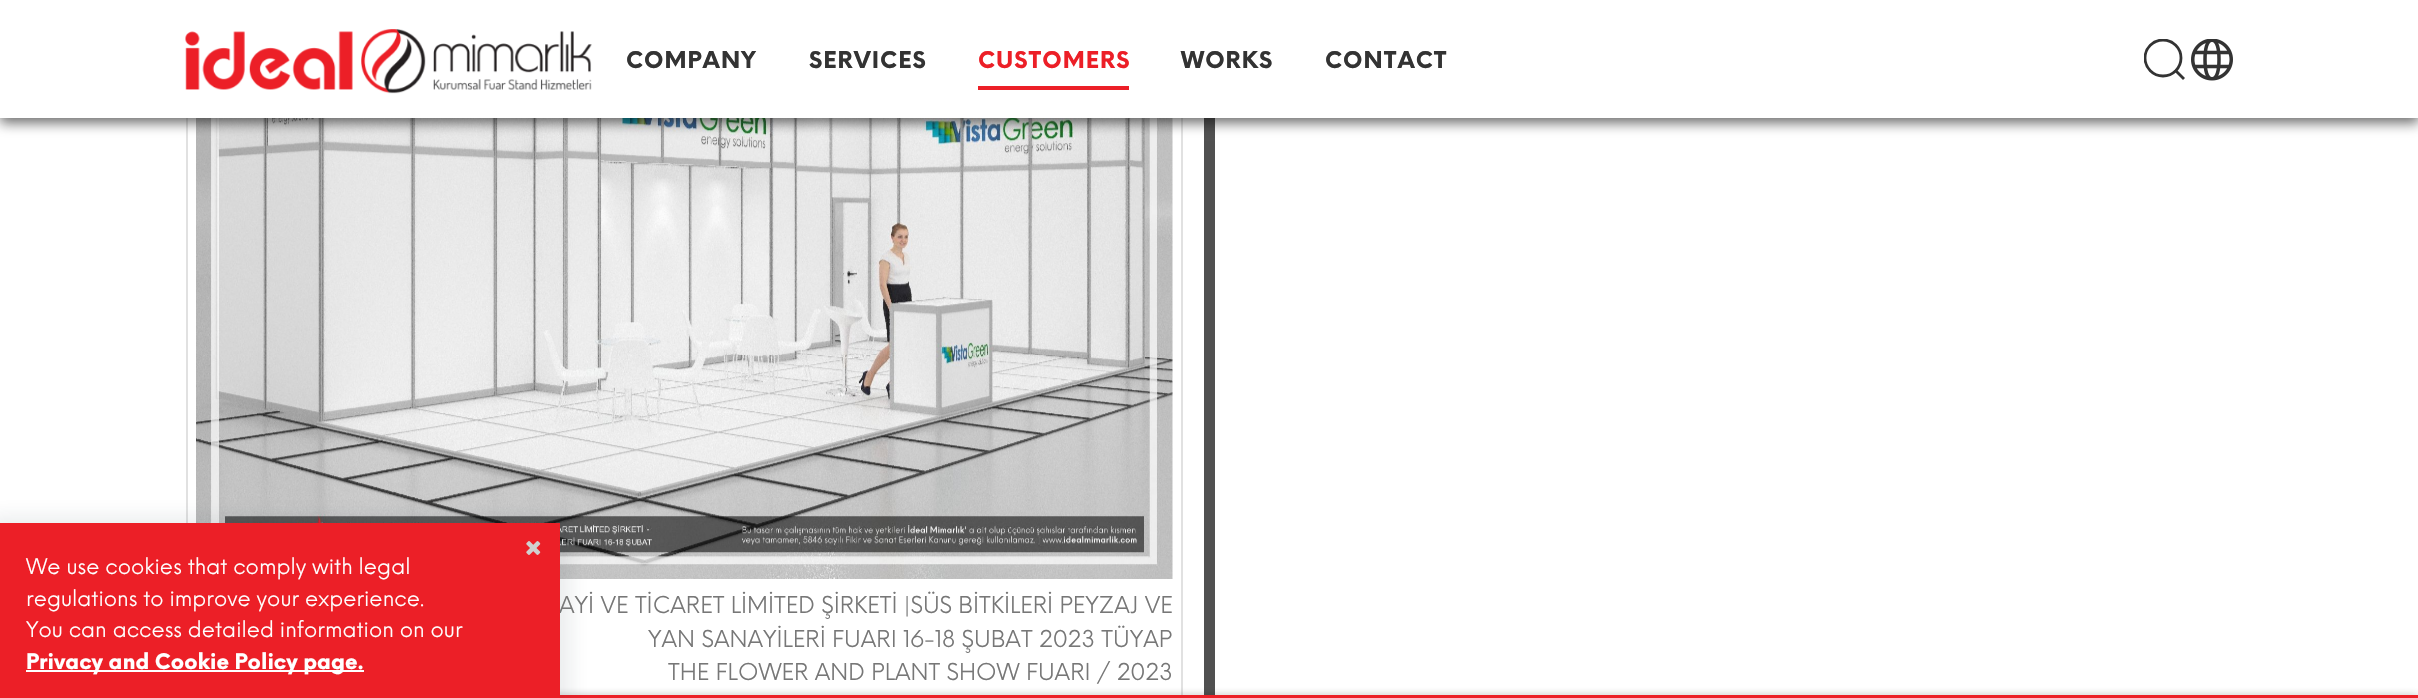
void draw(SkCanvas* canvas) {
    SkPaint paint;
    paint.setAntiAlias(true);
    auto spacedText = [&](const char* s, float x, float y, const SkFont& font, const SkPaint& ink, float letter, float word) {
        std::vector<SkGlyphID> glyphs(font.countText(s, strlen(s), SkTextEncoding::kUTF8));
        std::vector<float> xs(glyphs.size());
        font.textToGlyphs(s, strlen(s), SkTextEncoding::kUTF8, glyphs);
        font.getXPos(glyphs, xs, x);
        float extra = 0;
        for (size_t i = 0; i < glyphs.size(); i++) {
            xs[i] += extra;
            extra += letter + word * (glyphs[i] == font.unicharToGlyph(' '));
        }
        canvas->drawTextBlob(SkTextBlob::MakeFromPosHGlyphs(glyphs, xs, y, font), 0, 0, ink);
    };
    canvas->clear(0xFFFFFFFF);
    paint.setStyle(SkPaint::kStroke_Style);
    paint.setStrokeWidth(2);
    paint.setColor(0xFFE1E1E1);
    canvas->drawRect(SkRect::MakeXYWH(187, -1, 995, 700), paint);
    canvas->drawImageRect(SkImages::DeferredFromEncodedData(SkData::MakeFromFileName("img4.png")), SkRect::MakeXYWH(196, 118, 977, 461), SkSamplingOptions());
    paint.setStyle(SkPaint::kFill_Style);
    {
        const SkColor colors[] = {0xFFFFFFFF, 0xFF505050, 0xFF505050, 0xFFFFFFFF};
        const float stops[] = {0, 0.08f, 0.92f, 1};
        const SkPoint ends[] = {{1209, -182}, {1209, 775}};
        paint.setShader(SkGradientShader::MakeLinear(ends, colors, stops, 4, SkTileMode::kClamp));
        paint.setAlpha(255);
    }
    canvas->drawRect(SkRect::MakeXYWH(1204, 118, 11, 577), paint);
    paint.setShader(nullptr);
    paint.setColor(0x990A0A0A);
    paint.setMaskFilter(SkMaskFilter::MakeBlur(kNormal_SkBlurStyle, 6));
    canvas->drawRect(SkRect::MakeXYWH(0, 5, 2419, 118), paint);
    paint.setMaskFilter(nullptr);
    paint.setColor(0xFFFFFFFF);
    canvas->drawRect(SkRect::MakeXYWH(0, 0, 2418, 118), paint);
    canvas->drawImageRect(SkImages::DeferredFromEncodedData(SkData::MakeFromFileName("img1.png")), SkRect::MakeXYWH(185, 29, 407, 65), SkSamplingOptions());
    SkFont font1(fontMgr->matchFamilyStyle("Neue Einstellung", SkFontStyle(800, SkFontStyle::kNormal_Width, SkFontStyle::kUpright_Slant)), 22.5f);
    font1.setSubpixel(true);
    paint.setColor(0xFF333333);
    spacedText("COMPANY", 626, 68, font1, paint, 1, 0);
    spacedText("SERVICES", 809, 68, font1, paint, 1, 0);
    paint.setColor(0xFFEC1F27);
    spacedText("CUSTOMERS", 978, 68, font1, paint, 1, 0);
    canvas->drawRect(SkRect::MakeXYWH(978, 86, 151, 4), paint);
    paint.setColor(0xFF333333);
    spacedText("WORKS", 1181, 68, font1, paint, 1, 0);
    spacedText("CONTACT", 1325, 68, font1, paint, 1, 0);
    canvas->save();
    canvas->clipRect(SkRect::MakeXYWH(2144, 39, 42, 42));
    paint.setStyle(SkPaint::kStroke_Style);
    paint.setStrokeWidth(2.8f);
    canvas->drawCircle(2163, 58, 18, paint);
    canvas->restore();
    canvas->drawPath(SkPathBuilder().moveTo(2184, 79).lineTo(2175, 70).detach(), paint);
    canvas->drawImageRect(SkImages::DeferredFromEncodedData(SkData::MakeFromFileName("img2.png")), SkRect::MakeXYWH(2191, 39, 42, 42), SkSamplingOptions());
    paint.setStyle(SkPaint::kFill_Style);
    paint.setColor(0xE60A0A0A);
    paint.setMaskFilter(SkMaskFilter::MakeBlur(kNormal_SkBlurStyle, 6));
    canvas->drawRect(SkRect::MakeXYWH(0, 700, 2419, 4), paint);
    paint.setMaskFilter(nullptr);
    paint.setColor(0xFFEC1F27);
    canvas->drawRect(SkRect::MakeXYWH(560, 695, 1858, 3), paint);
    paint.setColor(0x17253342);
    paint.setMaskFilter(SkMaskFilter::MakeBlur(kNormal_SkBlurStyle, 9));
    canvas->drawRect(SkRect::MakeXYWH(-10, 516, 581, 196), paint);
    paint.setMaskFilter(nullptr);
    SkFont font2(fontMgr->matchFamilyStyle("Neue Einstellung", SkFontStyle::Normal()), 22.75f);
    font2.setSubpixel(true);
    paint.setColor(0xFF777777);
    canvas->drawString("AYİ VE TİCARET LİMİTED ŞİRKETİ |SÜS BİTKİLERİ PEYZAJ VE", 559, 613, font2, paint);
    paint.setColor(0xFFEC1F27);
    canvas->drawRect(SkRect::MakeXYWH(0, 523, 560, 175), paint);
    canvas->drawImageRect(SkImages::DeferredFromEncodedData(SkData::MakeFromFileName("img3.png")), SkRect::MakeXYWH(526, 541, 15, 14), SkSamplingOptions());
    SkFont font3(fontMgr->matchFamilyStyle("Neue Einstellung", SkFontStyle::Normal()), 21);
    font3.setSubpixel(true);
    paint.setColor(0xFFFFFFFF);
    canvas->drawString("We use cookies that comply with legal", 26, 574, font3, paint);
    canvas->drawString("regulations to improve your experience.", 26, 606, font3, paint);
    canvas->drawString("You can access detailed information on our", 26, 637, font3, paint);
    canvas->drawRect(SkRect::MakeXYWH(26, 670, 338, 2), paint);
    SkFont font4(fontMgr->matchFamilyStyle("Neue Einstellung", SkFontStyle(800, SkFontStyle::kNormal_Width, SkFontStyle::kUpright_Slant)), 21);
    font4.setSubpixel(true);
    canvas->drawString("Privacy and Cookie Policy page.", 26, 669, font4, paint);
    paint.setColor(0xFF777777);
    canvas->drawString("YAN SANAYİLERİ FUARI 16-18 ŞUBAT 2023 TÜYAP", 648, 647, font2, paint);
    canvas->drawString("THE FLOWER AND PLANT SHOW FUARI / 2023", 668, 680, font2, paint);
}
